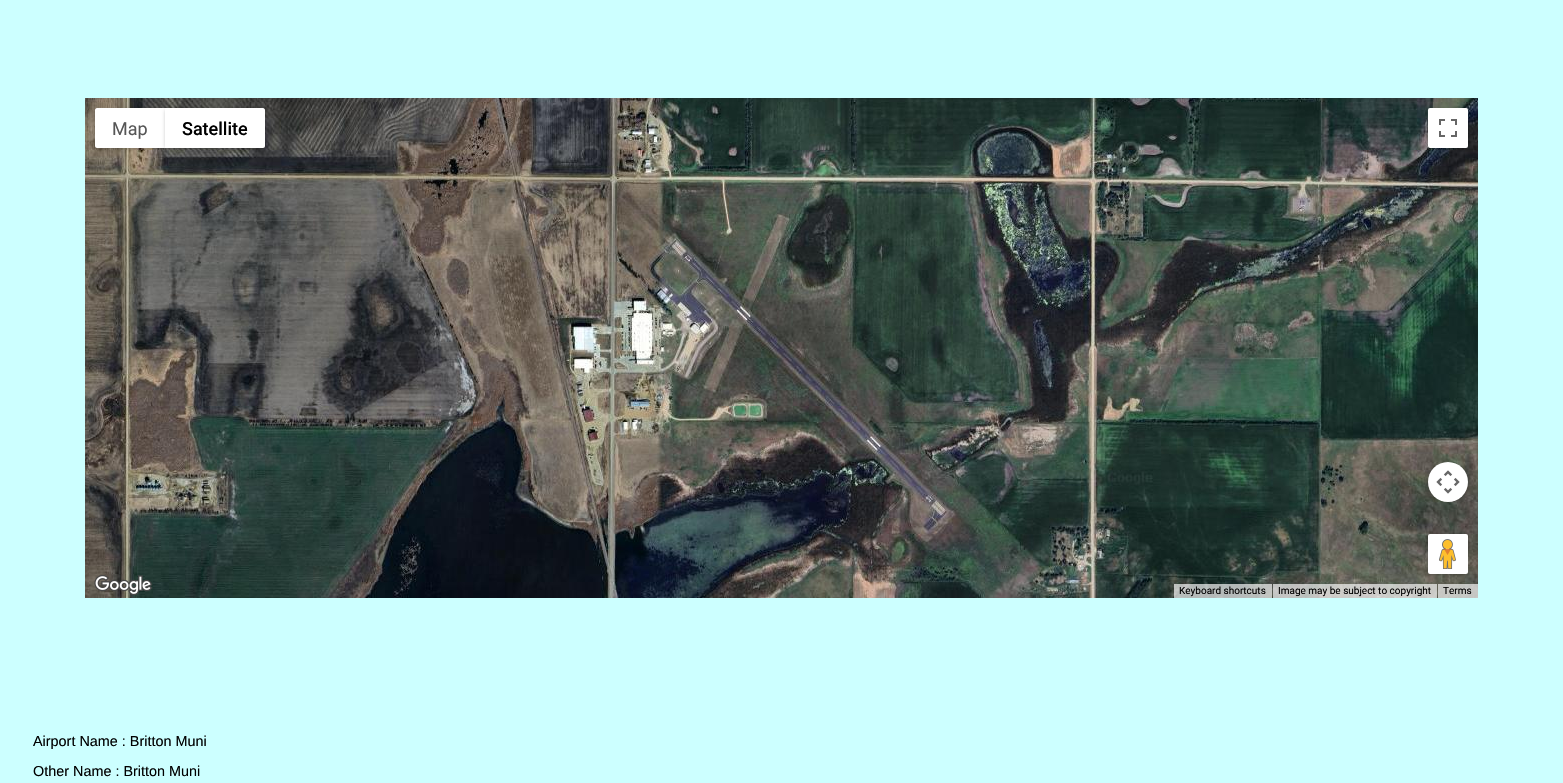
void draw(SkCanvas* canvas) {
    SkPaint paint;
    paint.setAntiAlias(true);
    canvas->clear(0xFFCCFFFF);
    canvas->drawImageRect(SkImages::DeferredFromEncodedData(SkData::MakeFromFileName("img1.png")), SkRect::MakeXYWH(85, 98, 132, 52), SkSamplingOptions());
    canvas->drawImageRect(SkImages::DeferredFromEncodedData(SkData::MakeFromFileName("img2.png")), SkRect::MakeXYWH(217, 98, 256, 52), SkSamplingOptions());
    canvas->drawImageRect(SkImages::DeferredFromEncodedData(SkData::MakeFromFileName("img3.png")), SkRect::MakeXYWH(473, 98, 256, 52), SkSamplingOptions());
    canvas->drawImageRect(SkImages::DeferredFromEncodedData(SkData::MakeFromFileName("img4.png")), SkRect::MakeXYWH(729, 98, 256, 52), SkSamplingOptions());
    canvas->drawImageRect(SkImages::DeferredFromEncodedData(SkData::MakeFromFileName("img5.png")), SkRect::MakeXYWH(985, 98, 256, 52), SkSamplingOptions());
    canvas->drawImageRect(SkImages::DeferredFromEncodedData(SkData::MakeFromFileName("img6.png")), SkRect::MakeXYWH(1241, 98, 237, 52), SkSamplingOptions());
    canvas->drawImageRect(SkImages::DeferredFromEncodedData(SkData::MakeFromFileName("img7.png")), SkRect::MakeXYWH(85, 150, 132, 256), SkSamplingOptions());
    canvas->drawImageRect(SkImages::DeferredFromEncodedData(SkData::MakeFromFileName("img8.png")), SkRect::MakeXYWH(217, 150, 256, 256), SkSamplingOptions());
    canvas->drawImageRect(SkImages::DeferredFromEncodedData(SkData::MakeFromFileName("img9.png")), SkRect::MakeXYWH(473, 150, 256, 256), SkSamplingOptions());
    canvas->drawImageRect(SkImages::DeferredFromEncodedData(SkData::MakeFromFileName("img10.png")), SkRect::MakeXYWH(729, 150, 256, 256), SkSamplingOptions());
    canvas->drawImageRect(SkImages::DeferredFromEncodedData(SkData::MakeFromFileName("img11.png")), SkRect::MakeXYWH(985, 150, 256, 256), SkSamplingOptions());
    canvas->drawImageRect(SkImages::DeferredFromEncodedData(SkData::MakeFromFileName("img12.png")), SkRect::MakeXYWH(1241, 150, 237, 256), SkSamplingOptions());
    canvas->drawImageRect(SkImages::DeferredFromEncodedData(SkData::MakeFromFileName("img13.png")), SkRect::MakeXYWH(85, 406, 132, 192), SkSamplingOptions());
    canvas->drawImageRect(SkImages::DeferredFromEncodedData(SkData::MakeFromFileName("img14.png")), SkRect::MakeXYWH(217, 406, 256, 192), SkSamplingOptions());
    canvas->drawImageRect(SkImages::DeferredFromEncodedData(SkData::MakeFromFileName("img15.png")), SkRect::MakeXYWH(473, 406, 256, 192), SkSamplingOptions());
    canvas->drawImageRect(SkImages::DeferredFromEncodedData(SkData::MakeFromFileName("img16.png")), SkRect::MakeXYWH(729, 406, 256, 192), SkSamplingOptions());
    canvas->drawImageRect(SkImages::DeferredFromEncodedData(SkData::MakeFromFileName("img17.png")), SkRect::MakeXYWH(985, 406, 256, 192), SkSamplingOptions());
    canvas->drawImageRect(SkImages::DeferredFromEncodedData(SkData::MakeFromFileName("img18.png")), SkRect::MakeXYWH(1241, 406, 237, 192), SkSamplingOptions());
    paint.setColor(0x4D000000);
    paint.setMaskFilter(SkMaskFilter::MakeBlur(kNormal_SkBlurStyle, 2));
    canvas->drawRoundRect(SkRect::MakeXYWH(96, 110, 68, 38), 1, 1, paint);
    paint.setMaskFilter(nullptr);
    paint.setColor(0xFFFFFFFF);
    canvas->drawPath(SkPathBuilder().moveTo(97, 108).lineTo(165, 108).lineTo(165, 148).lineTo(97, 148).cubicTo(96, 148, 95, 147, 95, 146).lineTo(95, 110).cubicTo(95, 109, 96, 108, 97, 108).close().detach(), paint);
    SkFont font1(fontMgr->matchFamilyStyle("Roboto", SkFontStyle::Normal()), 18);
    font1.setSubpixel(true);
    paint.setColor(0xFF565656);
    canvas->drawString("Map", 112, 135, font1, paint);
    paint.setColor(0x4D000000);
    paint.setMaskFilter(SkMaskFilter::MakeBlur(kNormal_SkBlurStyle, 2));
    canvas->drawRoundRect(SkRect::MakeXYWH(166, 110, 98, 38), 1, 1, paint);
    paint.setMaskFilter(nullptr);
    paint.setColor(0xFFFFFFFF);
    canvas->drawPath(SkPathBuilder().moveTo(165, 108).lineTo(263, 108).cubicTo(264, 108, 265, 109, 265, 110).lineTo(265, 146).cubicTo(265, 147, 264, 148, 263, 148).lineTo(165, 148).close().detach(), paint);
    SkFont font2(fontMgr->matchFamilyStyle("Roboto", SkFontStyle(500, SkFontStyle::kNormal_Width, SkFontStyle::kUpright_Slant)), 18);
    font2.setSubpixel(true);
    paint.setColor(0xFF000000);
    canvas->drawString("Satellite", 182, 135, font2, paint);
    paint.setColor(0x4D000000);
    paint.setMaskFilter(SkMaskFilter::MakeBlur(kNormal_SkBlurStyle, 2));
    canvas->drawRoundRect(SkRect::MakeXYWH(1429, 110, 38, 38), 1, 1, paint);
    paint.setMaskFilter(nullptr);
    paint.setColor(0xFFFFFFFF);
    canvas->drawRoundRect(SkRect::MakeXYWH(1428, 108, 40, 40), 2, 2, paint);
    canvas->drawImageRect(SkImages::DeferredFromEncodedData(SkData::MakeFromFileName("img19.png")), SkRect::MakeXYWH(1439, 119, 18, 18), SkSamplingOptions());
    paint.setColor(0x4D000000);
    paint.setMaskFilter(SkMaskFilter::MakeBlur(kNormal_SkBlurStyle, 2));
    canvas->drawRoundRect(SkRect::MakeXYWH(1429, 464, 38, 38), 19, 19, paint);
    paint.setMaskFilter(nullptr);
    paint.setColor(0xFFFFFFFF);
    canvas->drawCircle(1448, 482, 20, paint);
    canvas->drawImageRect(SkImages::DeferredFromEncodedData(SkData::MakeFromFileName("img20.png")), SkRect::MakeXYWH(1436, 470, 24, 24), SkSamplingOptions());
    paint.setColor(0x4D000000);
    paint.setMaskFilter(SkMaskFilter::MakeBlur(kNormal_SkBlurStyle, 2));
    canvas->drawRoundRect(SkRect::MakeXYWH(1429, 536, 38, 38), 1, 1, paint);
    paint.setMaskFilter(nullptr);
    paint.setColor(0xFFFFFFFF);
    canvas->drawRoundRect(SkRect::MakeXYWH(1428, 534, 40, 40), 2, 2, paint);
    canvas->drawImageRect(SkImages::DeferredFromEncodedData(SkData::MakeFromFileName("img21.png")), SkRect::MakeXYWH(1439, 539, 17, 30), SkSamplingOptions());
    canvas->drawImageRect(SkImages::DeferredFromEncodedData(SkData::MakeFromFileName("img22.png")), SkRect::MakeXYWH(94, 575, 58, 20), SkSamplingOptions());
    paint.setColor(0xB3F5F5F5);
    canvas->drawRect(SkRect::MakeXYWH(1174, 584, 98, 14), paint);
    SkFont font3(fontMgr->matchFamilyStyle("Roboto", SkFontStyle::Normal()), 10);
    font3.setSubpixel(true);
    paint.setColor(0xFF000000);
    canvas->drawString("Keyboard shortcuts", 1179, 594, font3, paint);
    paint.setColor(0xB3F5F5F5);
    canvas->drawRect(SkRect::MakeXYWH(1273, 584, 164, 14), paint);
    paint.setColor(0xFF000000);
    canvas->drawString("Image may be subject to copyright", 1278, 594, font3, paint);
    paint.setColor(0xB3F5F5F5);
    canvas->drawRect(SkRect::MakeXYWH(1438, 584, 40, 14), paint);
    paint.setColor(0xFF000000);
    canvas->drawString("Terms", 1443, 594, font3, paint);
    SkFont font4(fontMgr->matchFamilyStyle("Liberation Sans", SkFontStyle::Normal()), 14.4f);
    font4.setSubpixel(true);
    canvas->drawString("Airport Name : Britton Muni", 33, 746, font4, paint);
    canvas->drawString("Other Name : Britton Muni", 33, 776, font4, paint);
}
